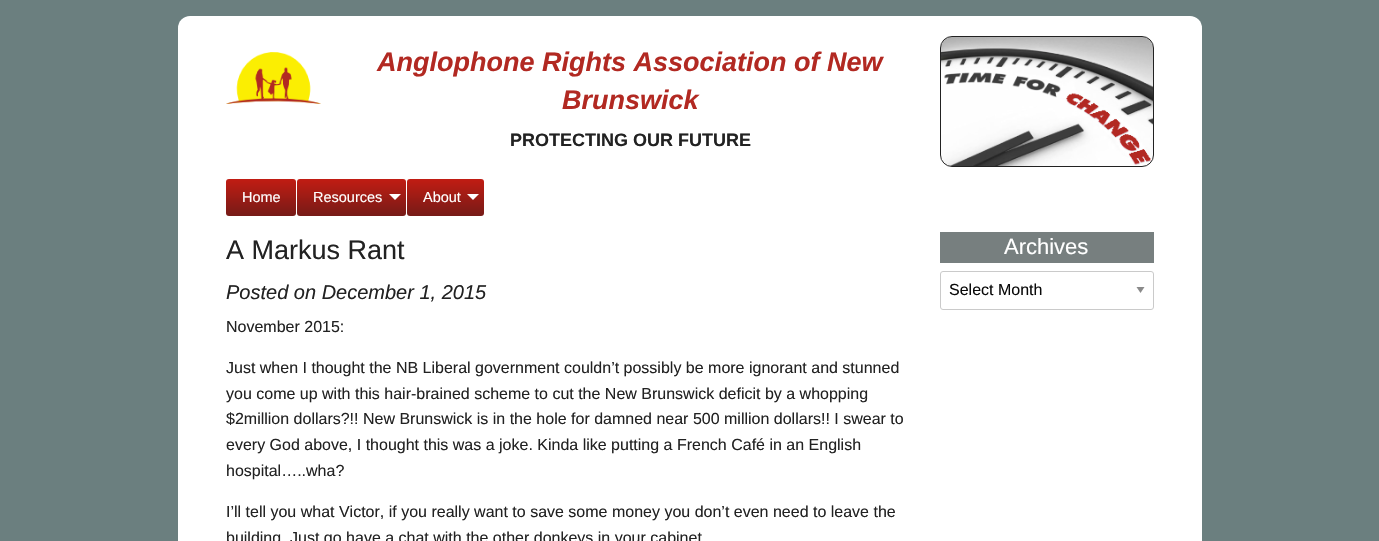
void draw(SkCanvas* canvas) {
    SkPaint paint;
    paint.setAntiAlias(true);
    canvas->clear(0xFF6B7F7F);
    paint.setColor(0xFFFFFFFF);
    canvas->drawRoundRect(SkRect::MakeXYWH(178, 16, 1024, 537), 12, 12, paint);
    canvas->drawImageRect(SkImages::DeferredFromEncodedData(SkData::MakeFromFileName("img1.png")), SkRect::MakeXYWH(226, 52, 95, 52), SkSamplingOptions());
    SkFont font1(fontMgr->matchFamilyStyle("Liberation Sans", SkFontStyle::BoldItalic()), 27);
    font1.setSubpixel(true);
    paint.setColor(0xFFB22922);
    canvas->drawString("Anglophone Rights Association of New", 377, 71, font1, paint);
    canvas->drawString("Brunswick", 562, 109, font1, paint);
    SkFont font2(fontMgr->matchFamilyStyle("Liberation Sans", SkFontStyle::Bold()), 18);
    font2.setSubpixel(true);
    paint.setColor(0xFF222222);
    canvas->drawString("PROTECTING OUR FUTURE", 510, 146, font2, paint);
    paint.setStyle(SkPaint::kStroke_Style);
    paint.setStrokeWidth(1);
    canvas->drawRoundRect(SkRect::MakeXYWH(940.5f, 36.5f, 213, 130), 11.5f, 11.5f, paint);
    canvas->drawImageRect(SkImages::DeferredFromEncodedData(SkData::MakeFromFileName("img2.png")), SkRect::MakeXYWH(941, 37, 212, 129), SkSamplingOptions());
    paint.setStyle(SkPaint::kFill_Style);
    {
        const SkColor colors[] = {0xFFC11C13, 0xFF761B17};
        const float stops[] = {0, 1};
        const SkPoint ends[] = {{261, 179}, {261, 216}};
        paint.setShader(SkGradientShader::MakeLinear(ends, colors, stops, 2, SkTileMode::kClamp));
        paint.setAlpha(255);
    }
    canvas->drawRoundRect(SkRect::MakeXYWH(226, 179, 70, 37), 3, 3, paint);
    SkFont font3(fontMgr->matchFamilyStyle("Liberation Sans", SkFontStyle::Normal()), 14.5f);
    font3.setSubpixel(true);
    paint.setShader(nullptr);
    paint.setColor(0xFFFFFFFF);
    canvas->drawString("Home", 242, 202, font3, paint);
    {
        const SkColor colors[] = {0xFFC11C13, 0xFF761B17};
        const float stops[] = {0, 1};
        const SkPoint ends[] = {{352, 179}, {352, 216}};
        paint.setShader(SkGradientShader::MakeLinear(ends, colors, stops, 2, SkTileMode::kClamp));
        paint.setAlpha(255);
    }
    canvas->drawRoundRect(SkRect::MakeXYWH(297, 179, 109, 37), 3, 3, paint);
    paint.setShader(nullptr);
    paint.setColor(0xFFFFFFFF);
    canvas->drawString("Resources", 313, 202, font3, paint);
    canvas->drawPath(SkPathBuilder().moveTo(389, 194).lineTo(401, 194).lineTo(395, 200).close().detach(), paint);
    {
        const SkColor colors[] = {0xFFC11C13, 0xFF761B17};
        const float stops[] = {0, 1};
        const SkPoint ends[] = {{446, 179}, {446, 216}};
        paint.setShader(SkGradientShader::MakeLinear(ends, colors, stops, 2, SkTileMode::kClamp));
        paint.setAlpha(255);
    }
    canvas->drawRoundRect(SkRect::MakeXYWH(407, 179, 77, 37), 3, 3, paint);
    paint.setShader(nullptr);
    paint.setColor(0xFFFFFFFF);
    canvas->drawString("About", 423, 202, font3, paint);
    canvas->drawPath(SkPathBuilder().moveTo(467, 194).lineTo(479, 194).lineTo(473, 200).close().detach(), paint);
    SkFont font4(fontMgr->matchFamilyStyle("Liberation Sans", SkFontStyle::Normal()), 27);
    font4.setSubpixel(true);
    paint.setColor(0xFF222222);
    canvas->drawString("A Markus Rant", 226, 259, font4, paint);
    SkFont font5(fontMgr->matchFamilyStyle("Liberation Sans", SkFontStyle::Italic()), 20);
    font5.setSubpixel(true);
    canvas->drawString("Posted on December 1, 2015", 226, 299, font5, paint);
    SkFont font6(fontMgr->matchFamilyStyle("Liberation Sans", SkFontStyle::Normal()), 16);
    font6.setSubpixel(true);
    canvas->drawString("November 2015:", 226, 332, font6, paint);
    canvas->drawString("Just when I thought the NB Liberal government couldn’t possibly be more ignorant and stunned", 226, 373, font6, paint);
    canvas->drawString("you come up with this hair-brained scheme to cut the New Brunswick deficit by a whopping", 226, 399, font6, paint);
    canvas->drawString("$2million dollars?!! New Brunswick is in the hole for damned near 500 million dollars!! I swear to", 226, 424, font6, paint);
    canvas->drawString("every God above, I thought this was a joke. Kinda like putting a French Café in an English", 226, 450, font6, paint);
    canvas->drawString("hospital…..wha?", 226, 476, font6, paint);
    canvas->drawString("I’ll tell you what Victor, if you really want to save some money you don’t even need to leave the", 226, 517, font6, paint);
    canvas->drawString("building. Just go have a chat with the other donkeys in your cabinet", 226, 543, font6, paint);
    paint.setColor(0xFF777F7F);
    canvas->drawRect(SkRect::MakeXYWH(940, 232, 214, 31), paint);
    SkFont font7(fontMgr->matchFamilyStyle("Liberation Sans", SkFontStyle::Normal()), 22);
    font7.setSubpixel(true);
    paint.setColor(0xFFFFFFFF);
    canvas->drawString("Archives", 1004, 254, font7, paint);
    paint.setColor(0xFF8A8A8A);
    canvas->drawPath(SkPathBuilder().moveTo(1136.5f, 287).lineTo(1144.5f, 287).lineTo(1140.5f, 293).close().detach(), paint);
    paint.setStyle(SkPaint::kStroke_Style);
    paint.setColor(0xFFCACACA);
    canvas->drawRoundRect(SkRect::MakeXYWH(940.5f, 271.5f, 213, 38), 2.5f, 2.5f, paint);
    paint.setStyle(SkPaint::kFill_Style);
    paint.setColor(0xFF0A0A0A);
    canvas->drawString("Select Month", 949, 295, font6, paint);
}
